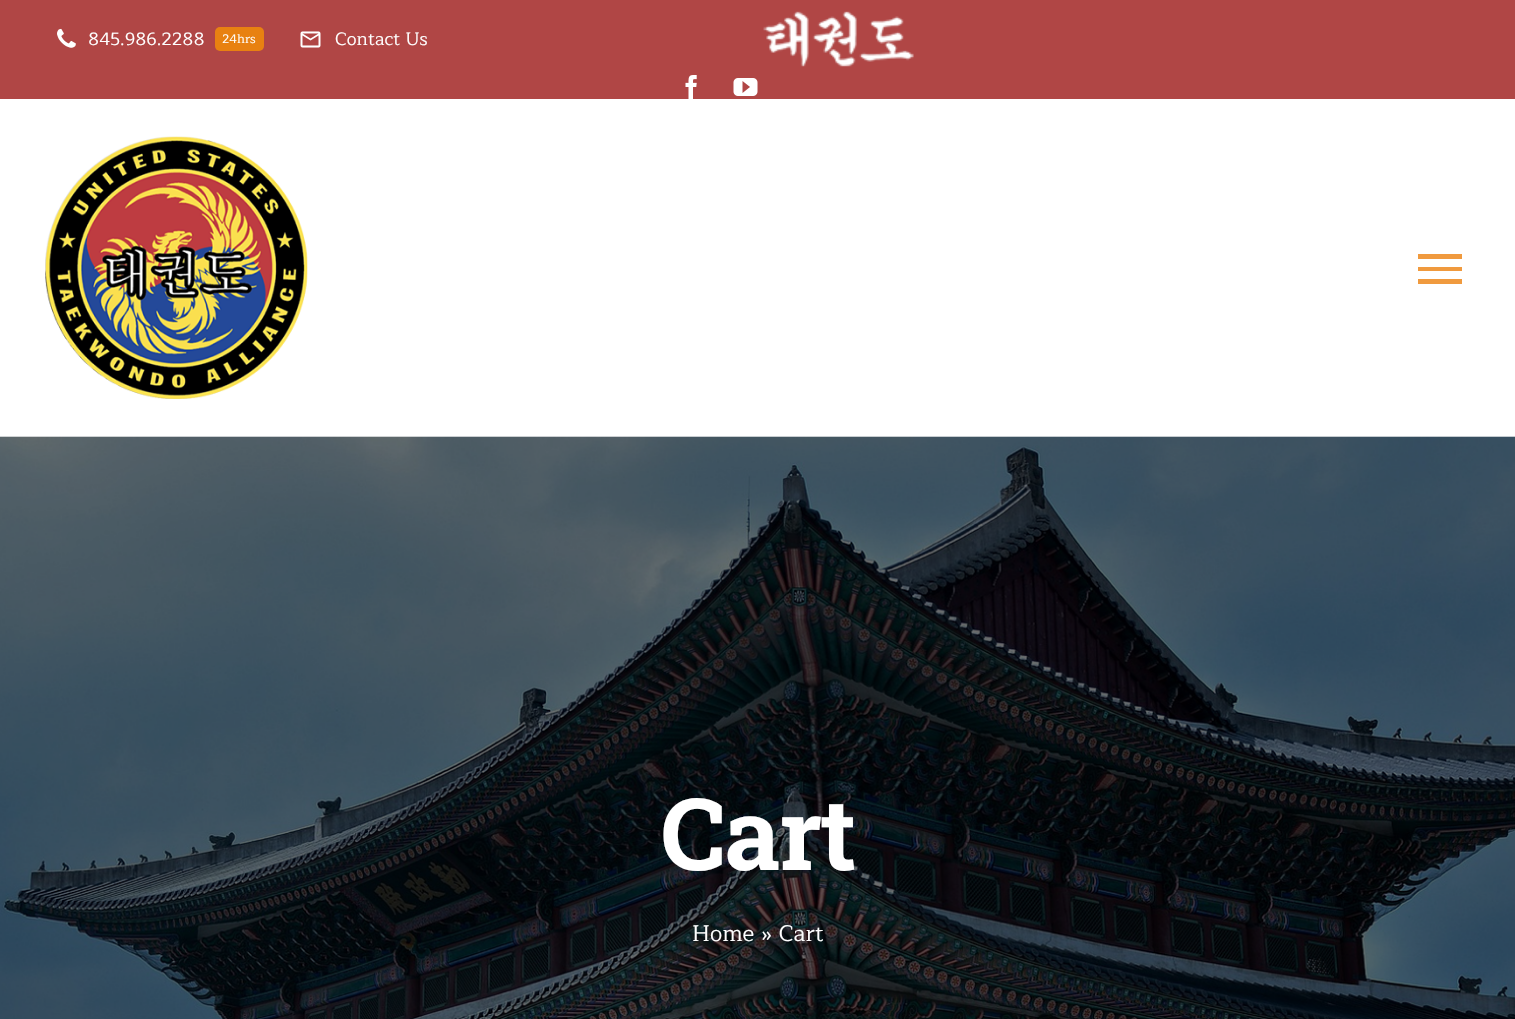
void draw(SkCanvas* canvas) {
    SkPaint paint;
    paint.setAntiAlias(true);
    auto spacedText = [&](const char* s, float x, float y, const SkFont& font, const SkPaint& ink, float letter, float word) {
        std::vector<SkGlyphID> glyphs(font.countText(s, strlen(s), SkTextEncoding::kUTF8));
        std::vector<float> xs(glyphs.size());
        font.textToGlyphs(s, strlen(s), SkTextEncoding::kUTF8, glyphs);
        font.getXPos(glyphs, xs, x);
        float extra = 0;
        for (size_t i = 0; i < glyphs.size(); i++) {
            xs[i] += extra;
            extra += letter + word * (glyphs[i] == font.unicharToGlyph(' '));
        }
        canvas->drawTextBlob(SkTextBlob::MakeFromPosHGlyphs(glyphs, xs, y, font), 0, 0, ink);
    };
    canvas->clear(0xFFFFFFFF);
    paint.setColor(0xFFB04645);
    canvas->drawRect(SkRect::MakeXYWH(0, 0, 1515, 99), paint);
    canvas->drawImageRect(SkImages::DeferredFromEncodedData(SkData::MakeFromFileName("img1.png")), SkRect::MakeXYWH(57, 28, 19, 20), SkSamplingOptions());
    SkFont font1(fontMgr->matchFamilyStyle("Maitree", SkFontStyle::Normal()), 18);
    font1.setSubpixel(true);
    paint.setColor(0xFFFFFFFF);
    canvas->drawString("845.986.2288", 88, 45, font1, paint);
    paint.setColor(0xFFE88111);
    canvas->drawRoundRect(SkRect::MakeXYWH(215, 27, 49, 24), 5, 5, paint);
    SkFont font2(fontMgr->matchFamilyStyle("Maitree", SkFontStyle::Normal()), 12.5f);
    font2.setSubpixel(true);
    paint.setColor(0xFFFFFFFF);
    canvas->drawString("24hrs", 222, 43, font2, paint);
    canvas->drawImageRect(SkImages::DeferredFromEncodedData(SkData::MakeFromFileName("img2.png")), SkRect::MakeXYWH(300, 31, 21, 17), SkSamplingOptions());
    canvas->drawString("Contact Us", 335, 45, font1, paint);
    canvas->drawImageRect(SkImages::DeferredFromEncodedData(SkData::MakeFromFileName("img3.png")), SkRect::MakeXYWH(763, 11, 151, 56), SkSamplingOptions());
    canvas->drawImageRect(SkImages::DeferredFromEncodedData(SkData::MakeFromFileName("img4.png")), SkRect::MakeXYWH(685, 75, 12, 24), SkSamplingOptions());
    canvas->drawImageRect(SkImages::DeferredFromEncodedData(SkData::MakeFromFileName("img5.png")), SkRect::MakeXYWH(733, 78, 25, 18), SkSamplingOptions());
    canvas->drawImageRect(SkImages::DeferredFromEncodedData(SkData::MakeFromFileName("img7.png")), SkRect::MakeXYWH(0, 436, 1515, 583), SkSamplingOptions());
    paint.setColor(0x69FFFFFF);
    canvas->drawRect(SkRect::MakeXYWH(0, 436, 1515, 1), paint);
    canvas->drawImageRect(SkImages::DeferredFromEncodedData(SkData::MakeFromFileName("img6.png")), SkRect::MakeXYWH(45, 136, 263, 263), SkSamplingOptions());
    paint.setColor(0xFFF09A3E);
    canvas->drawPath(SkPathBuilder().moveTo(1418, 254).lineTo(1462, 254).lineTo(1462, 259).lineTo(1418, 259).close().moveTo(1418, 271).lineTo(1418, 267).lineTo(1462, 267).lineTo(1462, 271).close().moveTo(1418, 284).lineTo(1418, 279).lineTo(1462, 279).lineTo(1462, 284).close().detach(), paint);
    SkFont font3(fontMgr->matchFamilyStyle("Roboto Slab", SkFontStyle::Bold()), 100);
    font3.setSubpixel(true);
    paint.setColor(0xFFFFFFFF);
    spacedText("Cart", 661, 870, font3, paint, -1.5f, 0);
    SkFont font4(fontMgr->matchFamilyStyle("Maitree", SkFontStyle::Normal()), 22.5f);
    font4.setSubpixel(true);
    canvas->drawString("Home » Cart", 692, 941, font4, paint);
}
